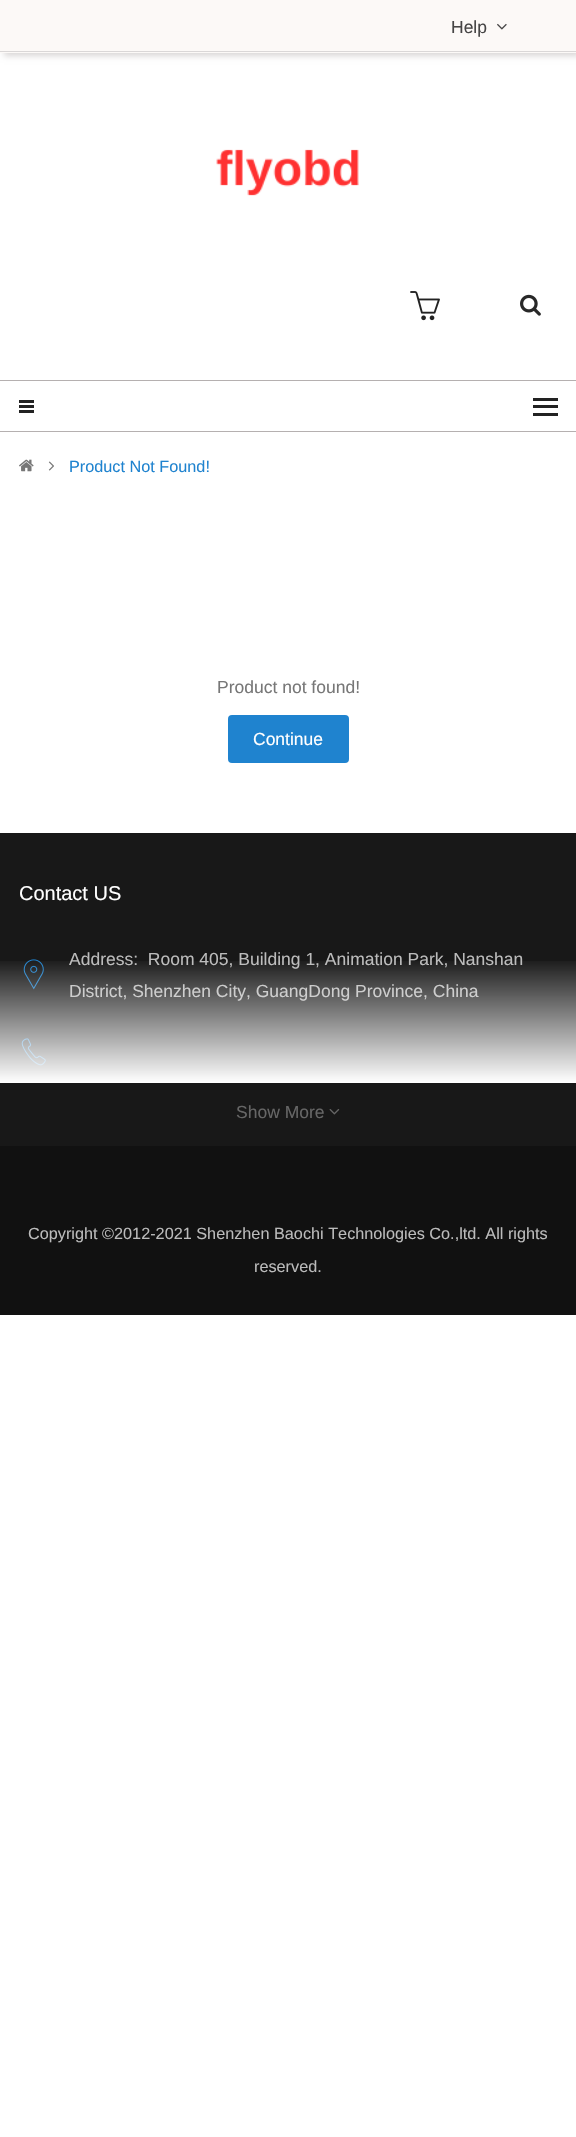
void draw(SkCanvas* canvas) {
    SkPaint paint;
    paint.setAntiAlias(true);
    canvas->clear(0xFFFFFFFF);
    paint.setColor(0xFFDAD7D7);
    paint.setMaskFilter(SkMaskFilter::MakeBlur(kNormal_SkBlurStyle, 3));
    canvas->drawRect(SkRect::MakeXYWH(4, 4, 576, 52), paint);
    paint.setMaskFilter(nullptr);
    paint.setColor(0xFFFCF9F7);
    canvas->drawRect(SkRect::MakeXYWH(0, 0, 576, 53), paint);
    paint.setColor(0xFFDAD7D7);
    canvas->drawRect(SkRect::MakeXYWH(0, 51, 576, 1), paint);
    SkFont font1(fontMgr->matchFamilyStyle("Liberation Sans", SkFontStyle::Normal()), 17.5f);
    font1.setSubpixel(true);
    paint.setColor(0xFF464545);
    canvas->drawString("Help", 451, 33, font1, paint);
    canvas->drawImageRect(SkImages::DeferredFromEncodedData(SkData::MakeFromFileName("img1.png")), SkRect::MakeXYWH(497, 23, 10, 7), SkSamplingOptions());
    canvas->drawImageRect(SkImages::DeferredFromEncodedData(SkData::MakeFromFileName("img2.png")), SkRect::MakeXYWH(216, 149, 143, 47), SkSamplingOptions());
    canvas->drawImageRect(SkImages::DeferredFromEncodedData(SkData::MakeFromFileName("img3.png")), SkRect::MakeXYWH(410, 291, 30, 30), SkSamplingOptions());
    canvas->drawImageRect(SkImages::DeferredFromEncodedData(SkData::MakeFromFileName("img4.png")), SkRect::MakeXYWH(520, 294, 21, 22), SkSamplingOptions());
    paint.setColor(0xFFB5B0B0);
    canvas->drawRect(SkRect::MakeXYWH(0, 380, 576, 1), paint);
    canvas->drawRect(SkRect::MakeXYWH(0, 431, 576, 1), paint);
    paint.setColor(0xFF222222);
    canvas->drawRect(SkRect::MakeXYWH(19, 400, 15, 3), paint);
    canvas->drawRect(SkRect::MakeXYWH(19, 405, 15, 3), paint);
    canvas->drawRect(SkRect::MakeXYWH(19, 410, 15, 3), paint);
    canvas->drawRect(SkRect::MakeXYWH(533, 398, 25, 3), paint);
    canvas->drawRect(SkRect::MakeXYWH(533, 405, 25, 3), paint);
    canvas->drawRect(SkRect::MakeXYWH(533, 413, 25, 3), paint);
    canvas->drawImageRect(SkImages::DeferredFromEncodedData(SkData::MakeFromFileName("img5.png")), SkRect::MakeXYWH(19, 459, 15, 13), SkSamplingOptions());
    canvas->drawImageRect(SkImages::DeferredFromEncodedData(SkData::MakeFromFileName("img6.png")), SkRect::MakeXYWH(48, 461, 6, 10), SkSamplingOptions());
    SkFont font2(fontMgr->matchFamilyStyle("Liberation Sans", SkFontStyle::Normal()), 16.25f);
    font2.setSubpixel(true);
    paint.setColor(0xFF1F83CF);
    canvas->drawString("Product Not Found!", 69, 472, font2, paint);
    paint.setColor(0xFF777777);
    canvas->drawString("Product not found!", 217, 693, font1, paint);
    paint.setColor(0xFF1F83CF);
    canvas->drawRoundRect(SkRect::MakeXYWH(228, 715, 121, 48), 4, 4, paint);
    paint.setColor(0xFFFFFFFF);
    canvas->drawString("Continue", 253, 745, font1, paint);
    paint.setColor(0xFF181818);
    canvas->drawRect(SkRect::MakeXYWH(0, 833, 576, 313), paint);
    SkFont font3(fontMgr->matchFamilyStyle("Liberation Sans", SkFontStyle::Normal()), 20);
    font3.setSubpixel(true);
    paint.setColor(0xFFFFFFFF);
    canvas->drawString("Contact US", 19, 900, font3, paint);
    canvas->drawImageRect(SkImages::DeferredFromEncodedData(SkData::MakeFromFileName("img7.png")), SkRect::MakeXYWH(23, 959, 21, 31), SkSamplingOptions());
    paint.setColor(0xFFBBBBBB);
    canvas->drawString("Address:  Room 405, Building 1, Animation Park, Nanshan", 69, 965, font1, paint);
    canvas->drawString("District, Shenzhen City, GuangDong Province, China", 69, 997, font1, paint);
    canvas->drawImageRect(SkImages::DeferredFromEncodedData(SkData::MakeFromFileName("img8.png")), SkRect::MakeXYWH(21, 1038, 25, 28), SkSamplingOptions());
    {
        const SkColor colors[] = {0x00FFFFFF, 0xFFFFFFFF};
        const float stops[] = {0.5f, 1};
        const SkPoint ends[] = {{288, 833}, {288, 1083}};
        paint.setShader(SkGradientShader::MakeLinear(ends, colors, stops, 2, SkTileMode::kClamp));
        paint.setAlpha(255);
    }
    canvas->drawRect(SkRect::MakeXYWH(0, 961, 576, 122), paint);
    paint.setShader(nullptr);
    paint.setColor(0xFF666666);
    canvas->drawString("Show More", 236, 1118, font1, paint);
    canvas->drawImageRect(SkImages::DeferredFromEncodedData(SkData::MakeFromFileName("img9.png")), SkRect::MakeXYWH(329, 1109, 11, 6), SkSamplingOptions());
    paint.setColor(0xFF111111);
    canvas->drawRect(SkRect::MakeXYWH(0, 1146, 576, 169), paint);
    paint.setColor(0xFFBBBBBB);
    canvas->drawString("Copyright ©2012-2021 Shenzhen Baochi Technologies Co.,ltd. All rights", 28, 1239, font2, paint);
    canvas->drawString("reserved.", 254, 1272, font2, paint);
}
